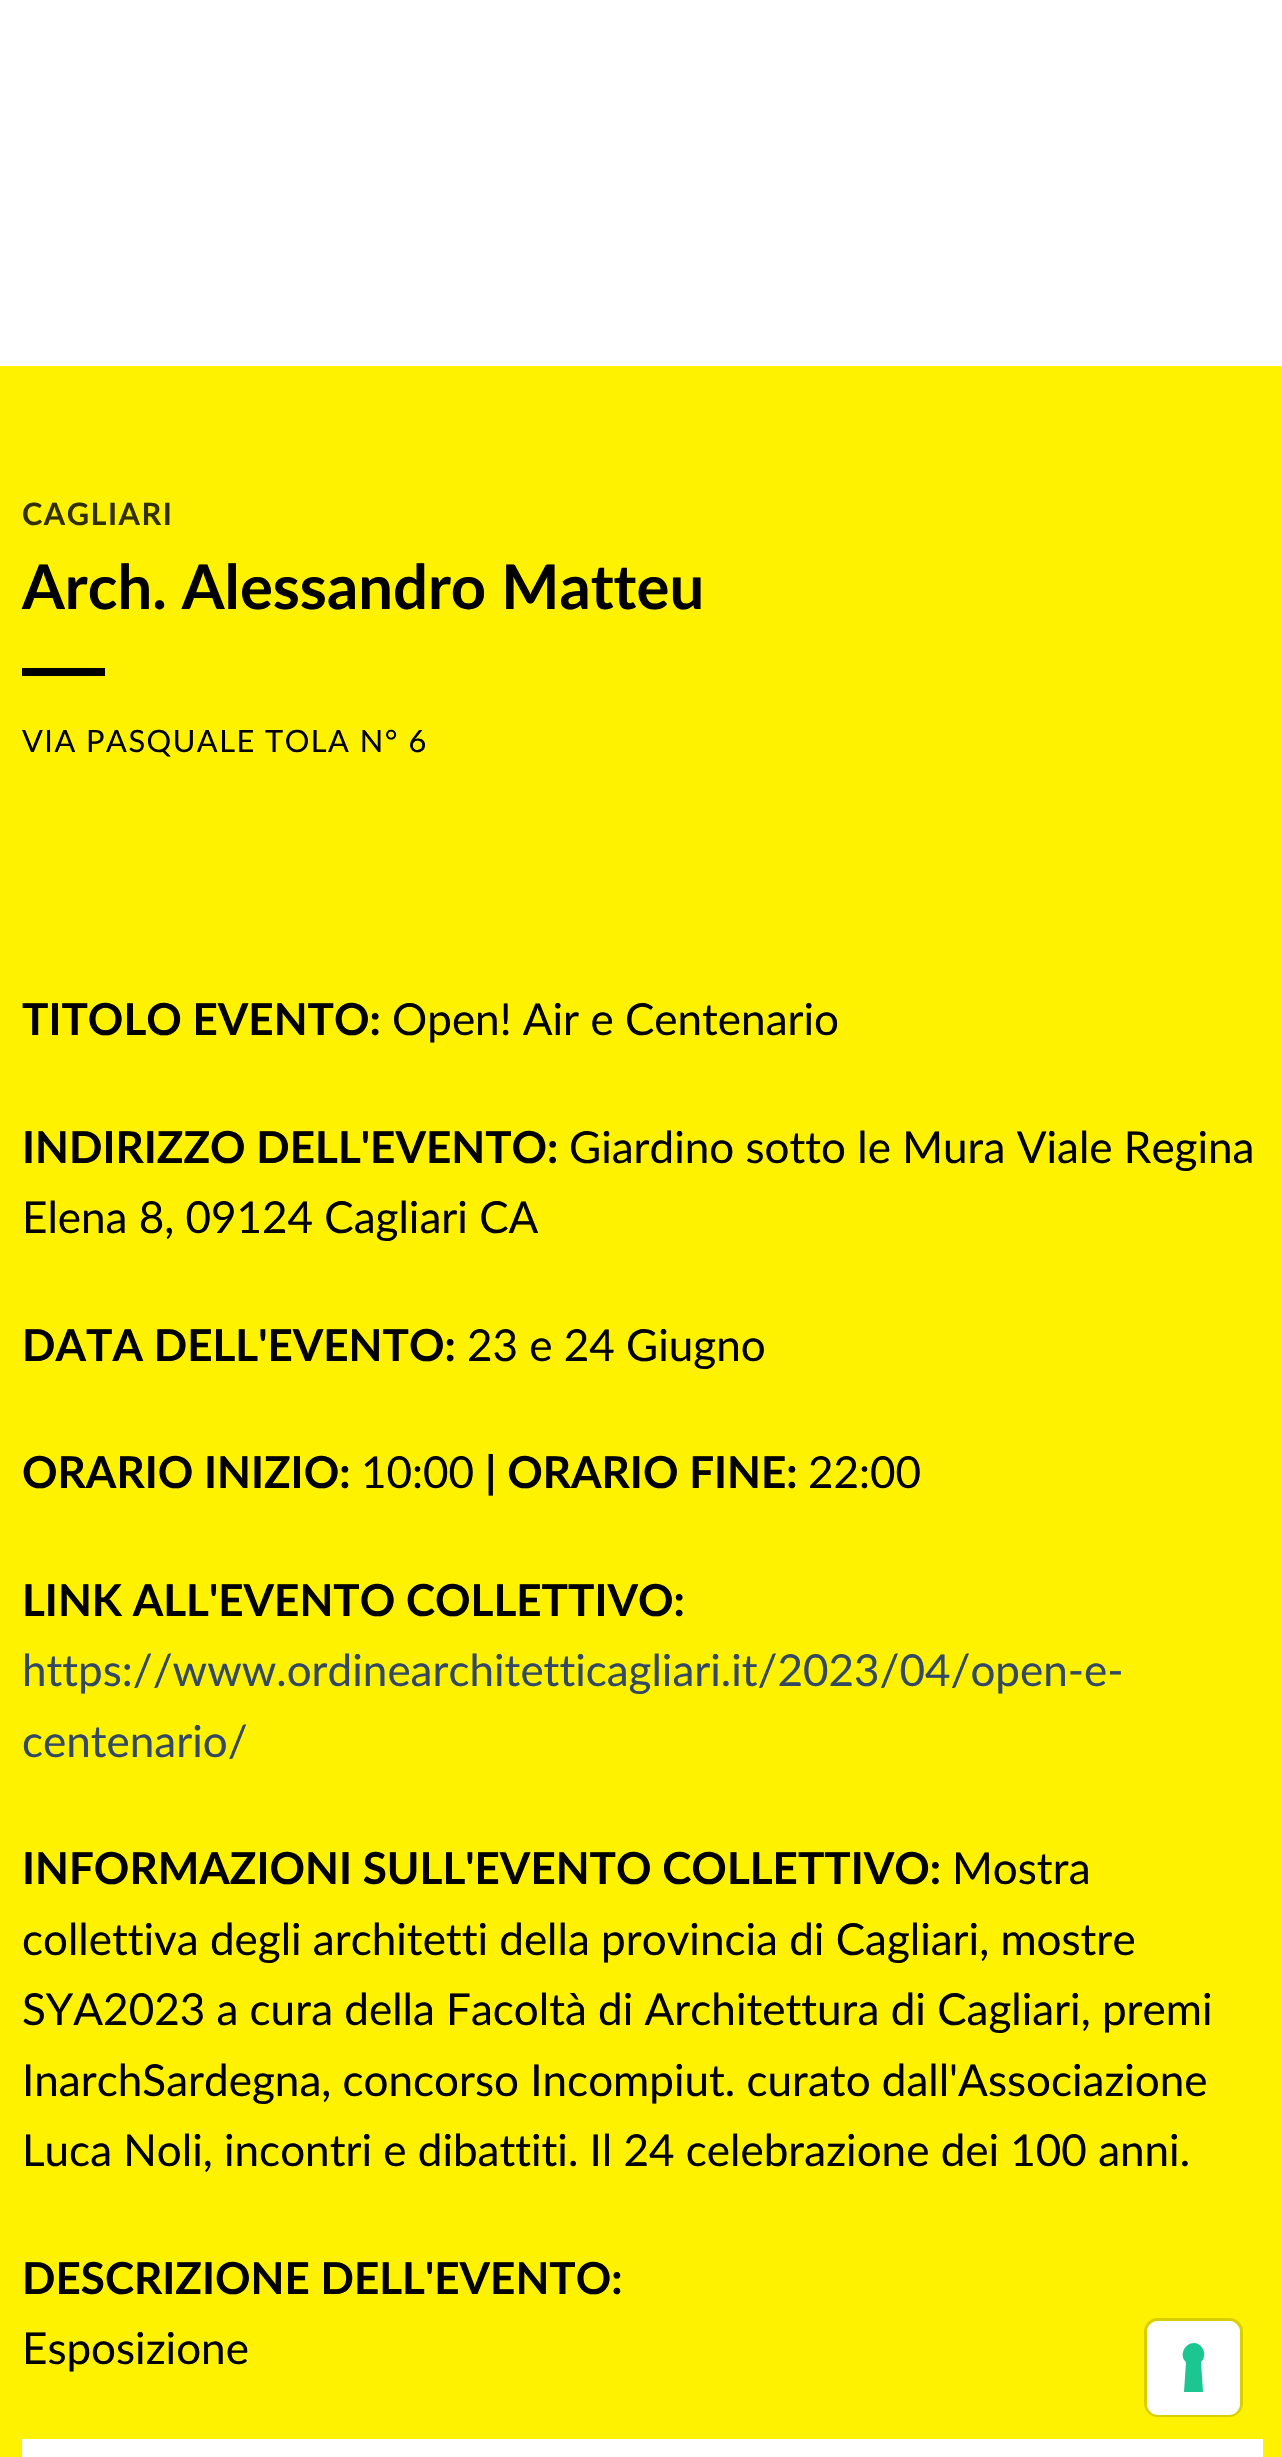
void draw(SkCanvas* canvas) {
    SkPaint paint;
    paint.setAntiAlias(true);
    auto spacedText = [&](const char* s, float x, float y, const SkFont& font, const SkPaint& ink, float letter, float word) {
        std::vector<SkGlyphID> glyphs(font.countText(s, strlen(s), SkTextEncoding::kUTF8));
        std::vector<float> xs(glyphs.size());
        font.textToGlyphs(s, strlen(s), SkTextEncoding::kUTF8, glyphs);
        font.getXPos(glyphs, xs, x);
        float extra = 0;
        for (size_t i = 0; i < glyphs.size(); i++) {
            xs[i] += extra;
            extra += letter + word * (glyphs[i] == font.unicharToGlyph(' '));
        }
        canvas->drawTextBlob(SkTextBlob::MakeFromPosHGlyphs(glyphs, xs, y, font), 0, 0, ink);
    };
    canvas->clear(0xFFFFFFFF);
    paint.setColor(0xFFFEF200);
    canvas->drawRect(SkRect::MakeXYWH(0, 366, 1282, 2091), paint);
    SkFont font1(fontMgr->matchFamilyStyle("Lato", SkFontStyle::Bold()), 30.75f);
    font1.setSubpixel(true);
    paint.setColor(0xFF333000);
    spacedText("CAGLIARI", 22, 525, font1, paint, 1.5f, 0);
    SkFont font2(fontMgr->matchFamilyStyle("Lato", SkFontStyle::Bold()), 61.6f);
    font2.setSubpixel(true);
    paint.setColor(0xFF000000);
    canvas->drawString("Arch. Alessandro Matteu", 22, 609, font2, paint);
    canvas->drawRect(SkRect::MakeXYWH(22, 668, 83, 8), paint);
    SkFont font3(fontMgr->matchFamilyStyle("Lato", SkFontStyle::Normal()), 30.75f);
    font3.setSubpixel(true);
    spacedText("VIA PASQUALE TOLA N° 6", 22, 752, font3, paint, 1.5f, 0);
    SkFont font4(fontMgr->matchFamilyStyle("Lato", SkFontStyle::Bold()), 44);
    font4.setSubpixel(true);
    canvas->drawString("TITOLO EVENTO:", 22, 1035, font4, paint);
    SkFont font5(fontMgr->matchFamilyStyle("Lato", SkFontStyle::Normal()), 44);
    font5.setSubpixel(true);
    canvas->drawString("Open! Air e Centenario", 392, 1035, font5, paint);
    canvas->drawString("INDIRIZZO DELL'EVENTO:", 22, 1163, font4, paint);
    canvas->drawString("Giardino sotto le Mura Viale Regina", 569, 1163, font5, paint);
    canvas->drawString("Elena 8, 09124 Cagliari CA", 22, 1233, font5, paint);
    canvas->drawString("DATA DELL'EVENTO:", 22, 1361, font4, paint);
    canvas->drawString("23 e 24 Giugno", 467, 1361, font5, paint);
    canvas->drawString("ORARIO INIZIO:", 22, 1488, font4, paint);
    canvas->drawString("10:00", 361, 1488, font5, paint);
    canvas->drawString("| ORARIO FINE:", 485, 1488, font4, paint);
    canvas->drawString("22:00", 808, 1488, font5, paint);
    canvas->drawString("LINK ALL'EVENTO COLLETTIVO:", 22, 1616, font4, paint);
    paint.setColor(0xFF334862);
    canvas->drawString("https://www.ordinearchitetticagliari.it/2023/04/open-e-", 22, 1686, font5, paint);
    canvas->drawString("centenario/", 22, 1757, font5, paint);
    paint.setColor(0xFF000000);
    canvas->drawString("INFORMAZIONI SULL'EVENTO COLLETTIVO:", 22, 1884, font4, paint);
    canvas->drawString("Mostra", 952, 1884, font5, paint);
    canvas->drawString("collettiva degli architetti della provincia di Cagliari, mostre", 22, 1955, font5, paint);
    canvas->drawString("SYA2023 a cura della Facoltà di Architettura di Cagliari, premi", 22, 2025, font5, paint);
    canvas->drawString("InarchSardegna, concorso Incompiut. curato dall'Associazione", 22, 2096, font5, paint);
    canvas->drawString("Luca Noli, incontri e dibattiti. Il 24 celebrazione dei 100 anni.", 22, 2166, font5, paint);
    canvas->drawString("DESCRIZIONE DELL'EVENTO:", 22, 2294, font4, paint);
    canvas->drawString("Esposizione", 22, 2364, font5, paint);
    paint.setColor(0xFFFFFFFF);
    canvas->drawRect(SkRect::MakeXYWH(22, 2439, 1241, 18), paint);
    paint.setStyle(SkPaint::kStroke_Style);
    paint.setStrokeWidth(3);
    paint.setColor(0xFFD8CE00);
    canvas->drawRoundRect(SkRect::MakeXYWH(1145.5f, 2319.5f, 96, 96), 12.5f, 12.5f, paint);
    paint.setStyle(SkPaint::kFill_Style);
    paint.setColor(0xFFFFFFFF);
    canvas->drawRoundRect(SkRect::MakeXYWH(1147, 2321, 93, 94), 11, 11, paint);
    paint.setColor(0xFF1CC691);
    canvas->drawPath(SkPathBuilder(SkPathFillType::kEvenOdd).moveTo(1194, 2343).cubicTo(1203, 2343, 1208, 2356, 1201, 2362).lineTo(1203, 2392).lineTo(1184, 2392).lineTo(1186, 2362).cubicTo(1179, 2356, 1184, 2343, 1194, 2343).close().detach(), paint);
}
